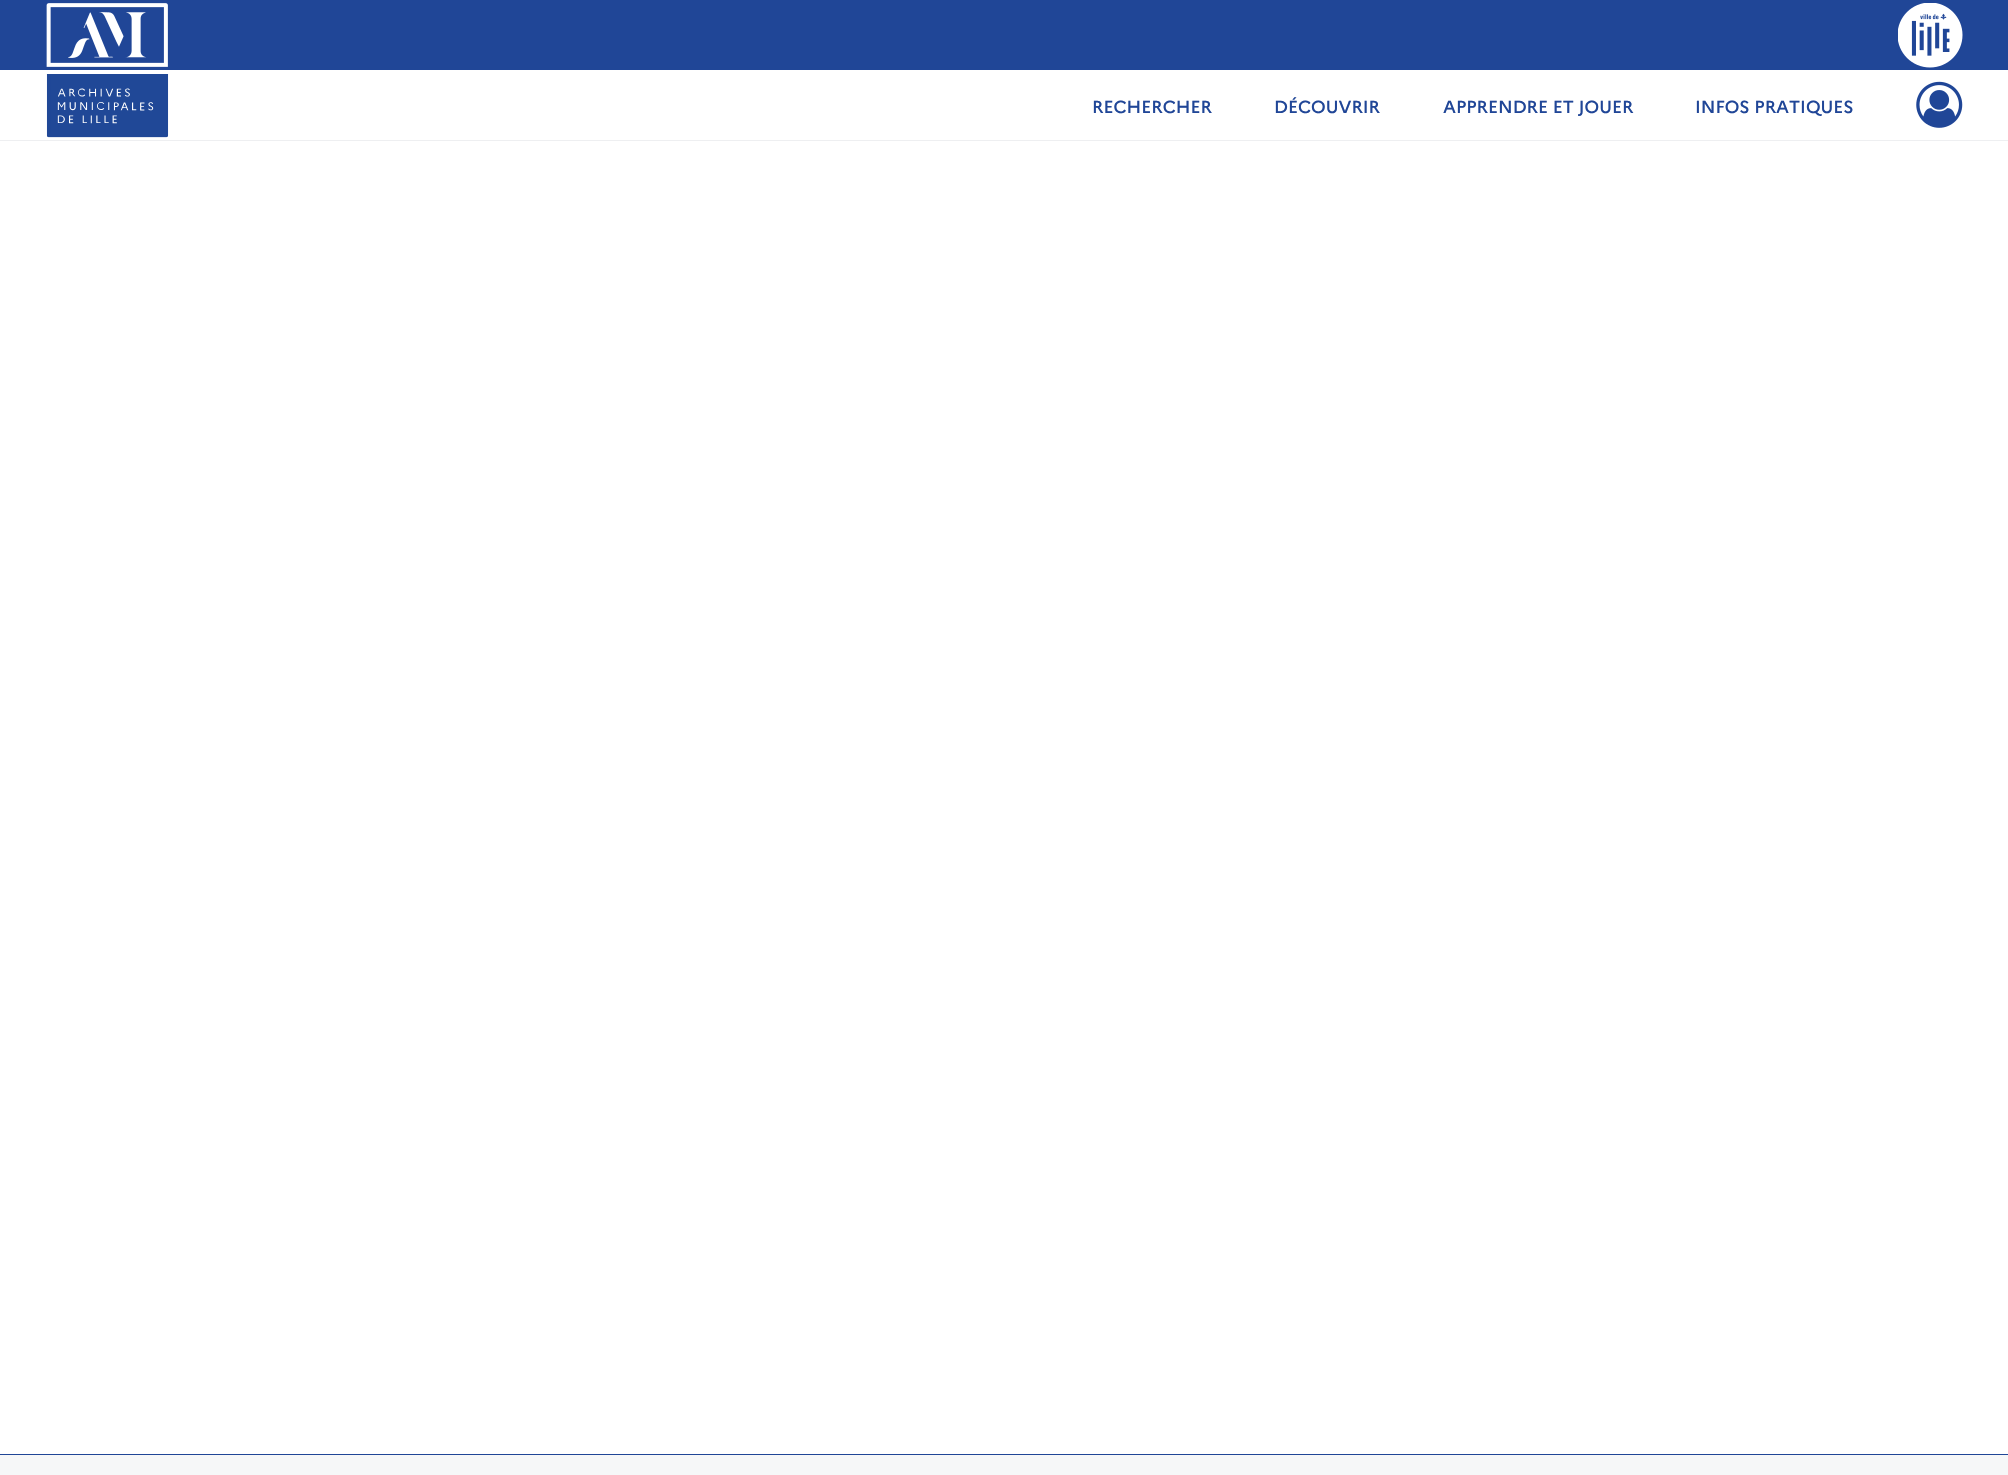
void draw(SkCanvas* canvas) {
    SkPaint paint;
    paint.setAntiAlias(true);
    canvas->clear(0xFFFFFFFF);
    paint.setColor(0xFF204697);
    canvas->drawRect(SkRect::MakeXYWH(0, 0, 2008, 70), paint);
    canvas->drawImageRect(SkImages::DeferredFromEncodedData(SkData::MakeFromFileName("img1.png")), SkRect::MakeXYWH(46, 3, 122, 64), SkSamplingOptions());
    canvas->drawImageRect(SkImages::DeferredFromEncodedData(SkData::MakeFromFileName("img2.png")), SkRect::MakeXYWH(1898, 3, 65, 65), SkSamplingOptions());
    paint.setColor(0xFFEEEFF1);
    canvas->drawRect(SkRect::MakeXYWH(0, 140, 2008, 1), paint);
    canvas->drawImageRect(SkImages::DeferredFromEncodedData(SkData::MakeFromFileName("img3.png")), SkRect::MakeXYWH(46, 74, 123, 64), SkSamplingOptions());
    SkFont font1(fontMgr->matchFamilyStyle("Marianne", SkFontStyle(500, SkFontStyle::kNormal_Width, SkFontStyle::kUpright_Slant)), 17.5f);
    font1.setSubpixel(true);
    paint.setColor(0xFF204697);
    canvas->drawString("RECHERCHER", 1092, 113, font1, paint);
    canvas->drawString("DÉCOUVRIR", 1274, 113, font1, paint);
    canvas->drawString("APPRENDRE ET JOUER", 1443, 113, font1, paint);
    canvas->drawString("INFOS PRATIQUES", 1695, 113, font1, paint);
    canvas->drawImageRect(SkImages::DeferredFromEncodedData(SkData::MakeFromFileName("img4.png")), SkRect::MakeXYWH(1916, 81, 47, 47), SkSamplingOptions());
    paint.setColor(0xFFF6F7F8);
    canvas->drawRect(SkRect::MakeXYWH(0, 1455, 2008, 20), paint);
    paint.setColor(0xFF204697);
    canvas->drawRect(SkRect::MakeXYWH(0, 1454, 2008, 1), paint);
}
